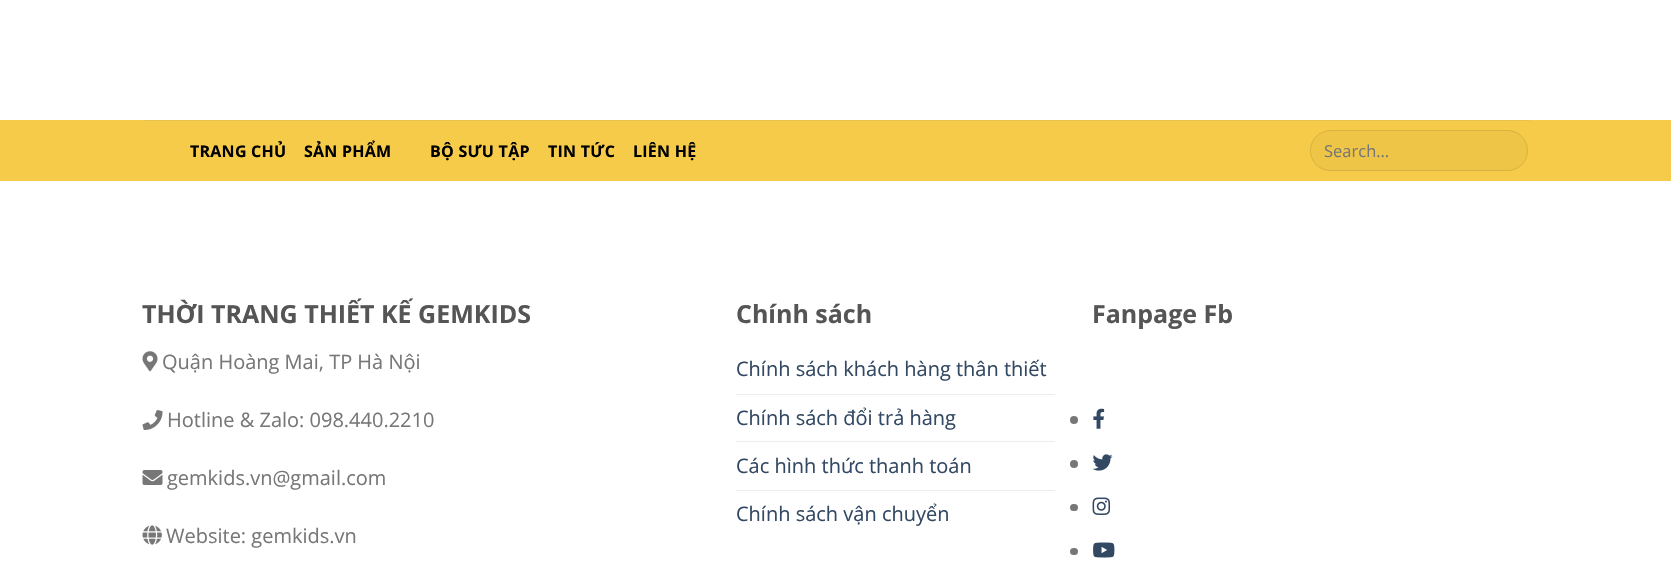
void draw(SkCanvas* canvas) {
    SkPaint paint;
    paint.setAntiAlias(true);
    auto spacedText = [&](const char* s, float x, float y, const SkFont& font, const SkPaint& ink, float letter, float word) {
        std::vector<SkGlyphID> glyphs(font.countText(s, strlen(s), SkTextEncoding::kUTF8));
        std::vector<float> xs(glyphs.size());
        font.textToGlyphs(s, strlen(s), SkTextEncoding::kUTF8, glyphs);
        font.getXPos(glyphs, xs, x);
        float extra = 0;
        for (size_t i = 0; i < glyphs.size(); i++) {
            xs[i] += extra;
            extra += letter + word * (glyphs[i] == font.unicharToGlyph(' '));
        }
        canvas->drawTextBlob(SkTextBlob::MakeFromPosHGlyphs(glyphs, xs, y, font), 0, 0, ink);
    };
    canvas->clear(0xFFFFFFFF);
    paint.setColor(0xFFF5CB49);
    canvas->drawRect(SkRect::MakeXYWH(0, 120, 1671, 61), paint);
    paint.setColor(0xFFE8C34E);
    canvas->drawRect(SkRect::MakeXYWH(143, 120, 1387, 1), paint);
    SkFont font1(fontMgr->matchFamilyStyle("Open Sans", SkFontStyle::Bold()), 16);
    font1.setSubpixel(true);
    paint.setColor(0xFF000000);
    spacedText("TRANG CHỦ", 190, 157, font1, paint, 0.25f, 0);
    spacedText("SẢN PHẨM", 304, 157, font1, paint, 0.25f, 0);
    spacedText("BỘ SƯU TẬP", 430, 157, font1, paint, 0.25f, 0);
    spacedText("TIN TỨC", 548, 157, font1, paint, 0.25f, 0);
    spacedText("LIÊN HỆ", 633, 157, font1, paint, 0.25f, 0);
    paint.setColor(0xFFEEC547);
    canvas->drawRoundRect(SkRect::MakeXYWH(1310, 130, 218, 41), 20.5f, 20.5f, paint);
    paint.setStyle(SkPaint::kStroke_Style);
    paint.setStrokeWidth(1);
    paint.setColor(0x17000000);
    canvas->drawRoundRect(SkRect::MakeXYWH(1310.5f, 130.5f, 217, 40), 20, 20, paint);
    SkFont font2(fontMgr->matchFamilyStyle("Open Sans", SkFontStyle::Normal()), 16.5f);
    font2.setSubpixel(true);
    paint.setStyle(SkPaint::kFill_Style);
    paint.setColor(0xFF777777);
    canvas->drawString("Search…", 1324, 157, font2, paint);
    SkFont font3(fontMgr->matchFamilyStyle("Open Sans", SkFontStyle::Bold()), 25);
    font3.setSubpixel(true);
    paint.setColor(0xFF555555);
    canvas->drawString("THỜI TRANG THIẾT KẾ GEMKIDS", 142, 323, font3, paint);
    canvas->drawImageRect(SkImages::DeferredFromEncodedData(SkData::MakeFromFileName("img1.png")), SkRect::MakeXYWH(142, 351, 16, 21), SkSamplingOptions());
    SkFont font4(fontMgr->matchFamilyStyle("Open Sans", SkFontStyle::Normal()), 20);
    font4.setSubpixel(true);
    paint.setColor(0xFF777777);
    canvas->drawString("Quận Hoàng Mai, TP Hà Nội", 162, 369, font4, paint);
    canvas->drawImageRect(SkImages::DeferredFromEncodedData(SkData::MakeFromFileName("img2.png")), SkRect::MakeXYWH(142, 410, 21, 20), SkSamplingOptions());
    canvas->drawString("Hotline & Zalo: 098.440.2210", 167, 427, font4, paint);
    canvas->drawImageRect(SkImages::DeferredFromEncodedData(SkData::MakeFromFileName("img3.png")), SkRect::MakeXYWH(142, 470, 21, 15), SkSamplingOptions());
    canvas->drawString("gemkids.vn@gmail.com", 167, 485, font4, paint);
    canvas->drawImageRect(SkImages::DeferredFromEncodedData(SkData::MakeFromFileName("img4.png")), SkRect::MakeXYWH(142, 525, 20, 20), SkSamplingOptions());
    canvas->drawString("Website: gemkids.vn", 166, 543, font4, paint);
    paint.setColor(0xFF555555);
    canvas->drawString("Chính sách", 736, 323, font3, paint);
    paint.setColor(0xFF334862);
    canvas->drawString("Chính sách khách hàng thân thiết", 736, 376, font4, paint);
    paint.setColor(0xFFECECEC);
    canvas->drawRect(SkRect::MakeXYWH(736, 394, 319, 1), paint);
    paint.setColor(0xFF334862);
    canvas->drawString("Chính sách đổi trả hàng", 736, 425, font4, paint);
    paint.setColor(0xFFECECEC);
    canvas->drawRect(SkRect::MakeXYWH(736, 441, 319, 1), paint);
    paint.setColor(0xFF334862);
    canvas->drawString("Các hình thức thanh toán", 736, 473, font4, paint);
    paint.setColor(0xFFECECEC);
    canvas->drawRect(SkRect::MakeXYWH(736, 490, 319, 1), paint);
    paint.setColor(0xFF334862);
    canvas->drawString("Chính sách vận chuyển", 736, 521, font4, paint);
    paint.setColor(0xFF555555);
    canvas->drawString("Fanpage Fb", 1092, 323, font3, paint);
    paint.setColor(0xFF777777);
    canvas->drawCircle(1074, 420, 4, paint);
    canvas->drawImageRect(SkImages::DeferredFromEncodedData(SkData::MakeFromFileName("img5.png")), SkRect::MakeXYWH(1093, 408, 12, 21), SkSamplingOptions());
    canvas->drawCircle(1074, 464, 4, paint);
    canvas->drawImageRect(SkImages::DeferredFromEncodedData(SkData::MakeFromFileName("img6.png")), SkRect::MakeXYWH(1092, 454, 21, 17), SkSamplingOptions());
    canvas->drawRoundRect(SkRect::MakeXYWH(1070, 504, 8, 7), 3.5f, 3.5f, paint);
    canvas->drawImageRect(SkImages::DeferredFromEncodedData(SkData::MakeFromFileName("img7.png")), SkRect::MakeXYWH(1092, 497, 19, 18), SkSamplingOptions());
    canvas->drawRoundRect(SkRect::MakeXYWH(1070, 548, 8, 7), 3.5f, 3.5f, paint);
    canvas->drawImageRect(SkImages::DeferredFromEncodedData(SkData::MakeFromFileName("img8.png")), SkRect::MakeXYWH(1093, 542, 22, 16), SkSamplingOptions());
}
